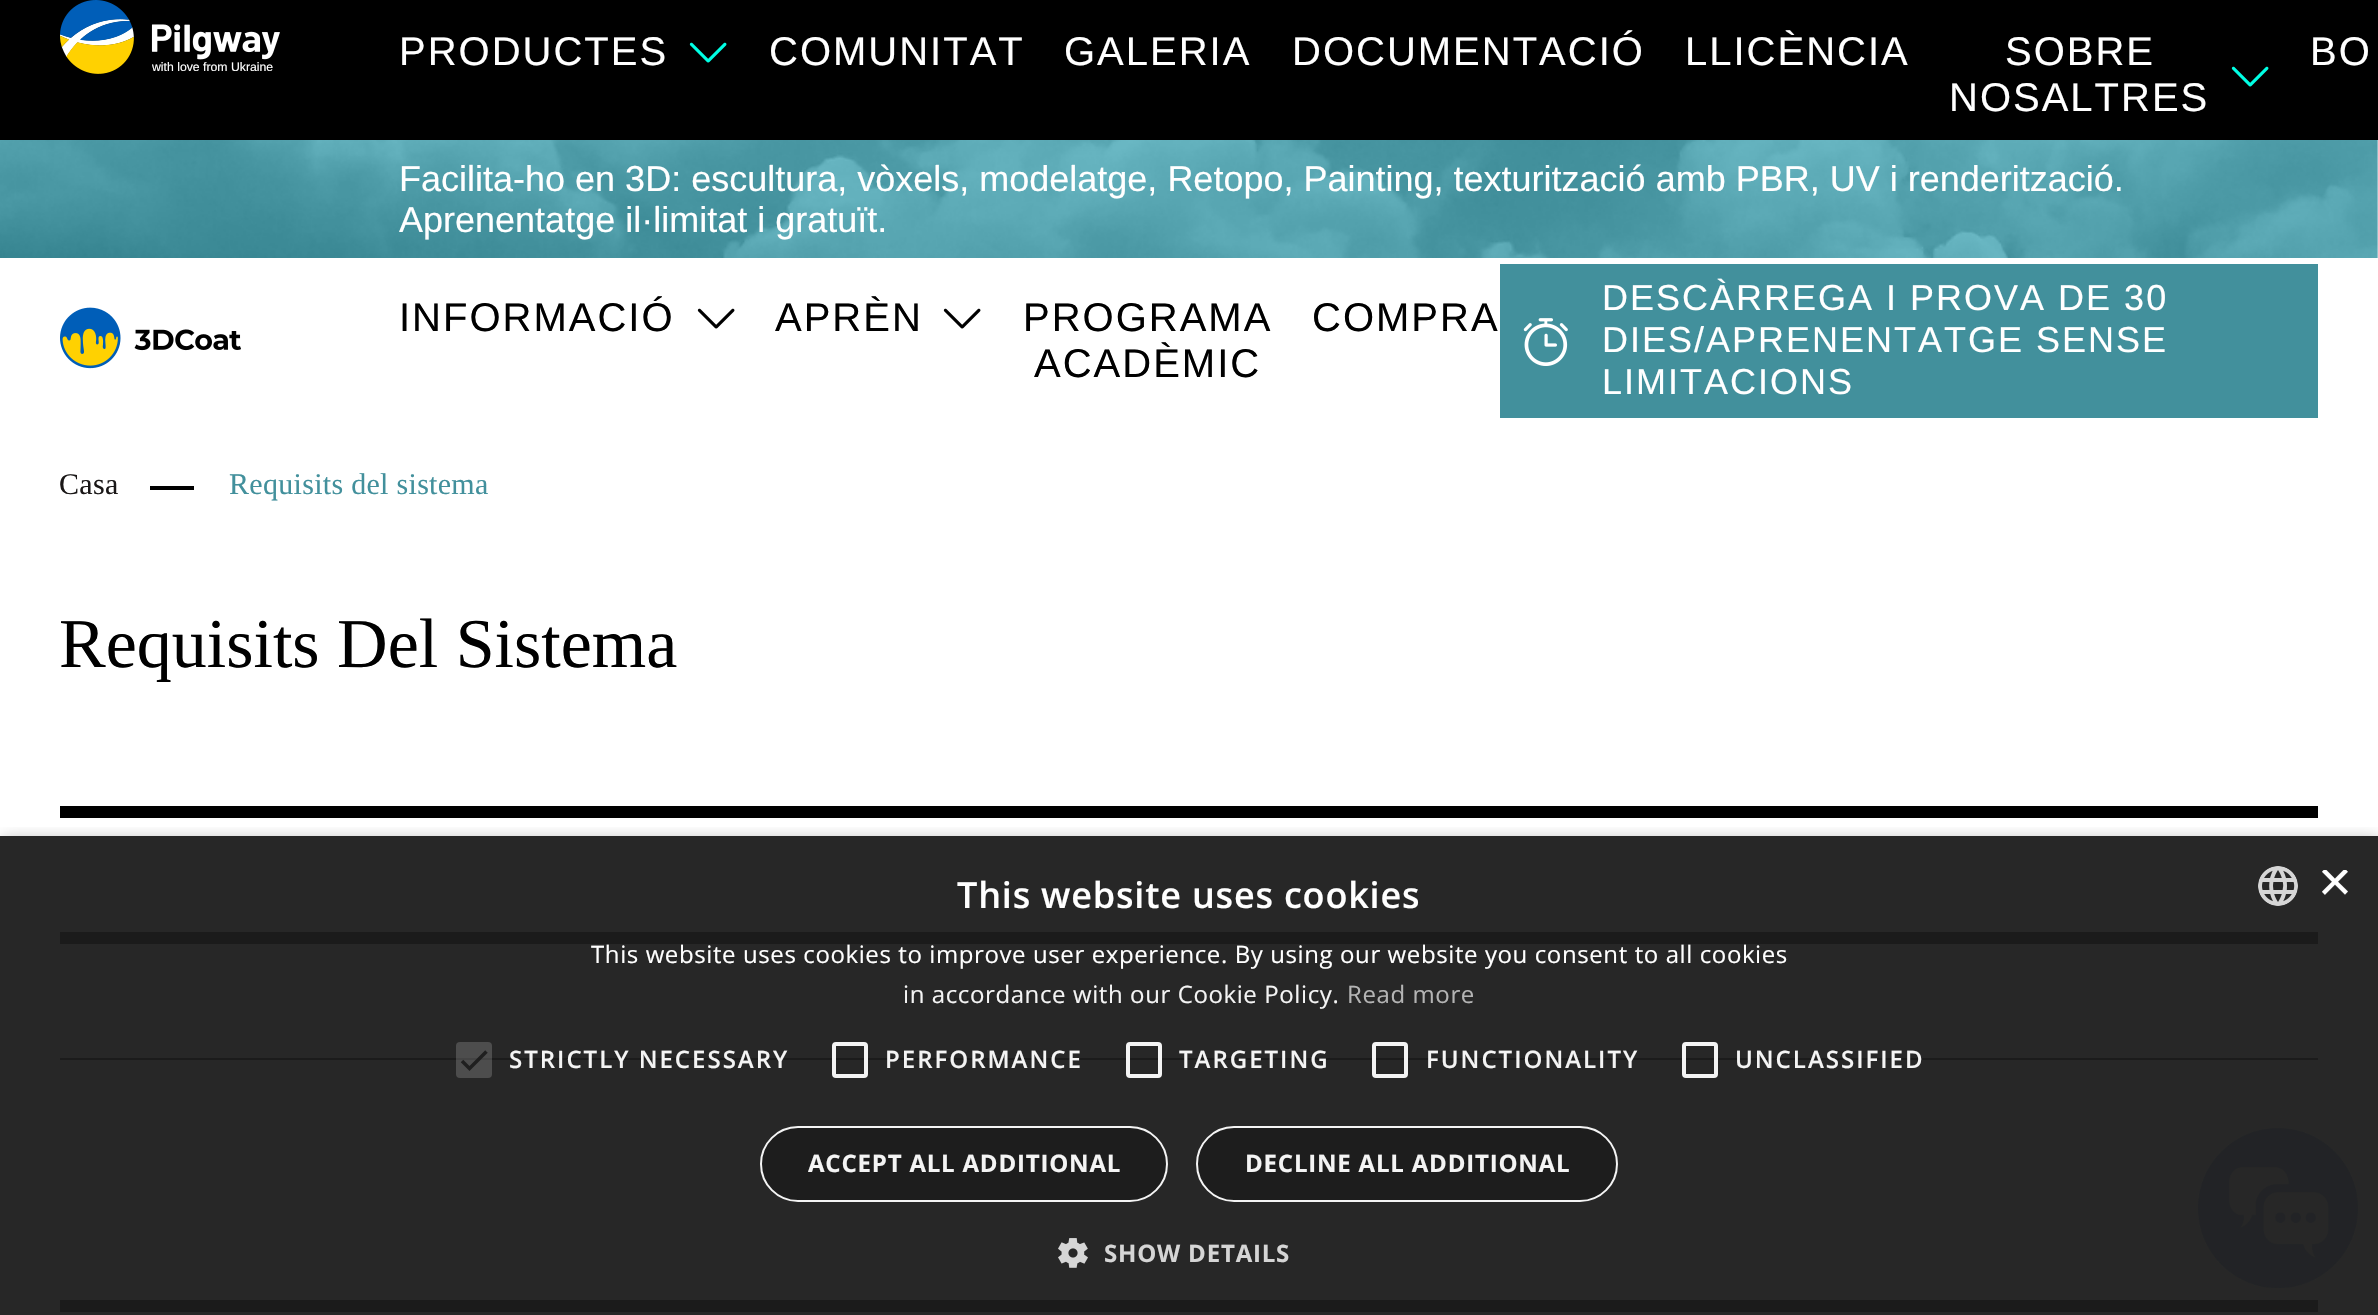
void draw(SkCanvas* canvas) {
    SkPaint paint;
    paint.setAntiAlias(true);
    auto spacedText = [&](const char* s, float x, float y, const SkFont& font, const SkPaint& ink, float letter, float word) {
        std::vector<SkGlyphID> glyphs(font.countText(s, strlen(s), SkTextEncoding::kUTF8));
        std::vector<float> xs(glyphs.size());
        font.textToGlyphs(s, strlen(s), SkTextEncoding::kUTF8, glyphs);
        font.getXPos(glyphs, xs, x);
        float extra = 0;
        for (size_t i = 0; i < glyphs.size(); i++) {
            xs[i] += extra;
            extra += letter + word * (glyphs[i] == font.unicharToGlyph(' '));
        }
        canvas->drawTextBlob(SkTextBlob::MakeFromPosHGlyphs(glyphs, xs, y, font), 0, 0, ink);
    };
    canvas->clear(0xFFFFFFFF);
    paint.setColor(0xFF272727);
    canvas->drawRect(SkRect::MakeXYWH(0, 836, 2378, 479), paint);
    paint.setColor(0xFF000000);
    canvas->drawRect(SkRect::MakeXYWH(0, 0, 2378, 140), paint);
    canvas->drawImageRect(SkImages::DeferredFromEncodedData(SkData::MakeFromFileName("img1.png")), SkRect::MakeXYWH(60, 0, 220, 74), SkSamplingOptions());
    SkFont font1(fontMgr->matchFamilyStyle("Liberation Sans", SkFontStyle::Normal()), 12.25f);
    font1.setSubpixel(true);
    paint.setColor(0xFFFFFFFF);
    canvas->drawString("with love from Ukraine", 152, 71, font1, paint);
    SkFont font2(fontMgr->matchFamilyStyle("Liberation Sans", SkFontStyle::Normal()), 40);
    font2.setSubpixel(true);
    spacedText("PRODUCTES", 399, 65, font2, paint, 2, 0);
    canvas->drawImageRect(SkImages::DeferredFromEncodedData(SkData::MakeFromFileName("img2.png")), SkRect::MakeXYWH(689, 42, 38, 21), SkSamplingOptions());
    spacedText("COMUNITAT", 769, 65, font2, paint, 2, 0);
    spacedText("GALERIA", 1064, 65, font2, paint, 2, 0);
    spacedText("DOCUMENTACIÓ", 1292, 65, font2, paint, 2, 0);
    spacedText("LLICÈNCIA", 1685, 65, font2, paint, 2, 0);
    spacedText("SOBRE", 2005, 65, font2, paint, 2, 0);
    spacedText("NOSALTRES", 1949, 111, font2, paint, 2, 0);
    canvas->drawImageRect(SkImages::DeferredFromEncodedData(SkData::MakeFromFileName("img2.png")), SkRect::MakeXYWH(2231, 66, 38, 21), SkSamplingOptions());
    spacedText("BO", 2310, 65, font2, paint, 2, 0);
    canvas->drawImageRect(SkImages::DeferredFromEncodedData(SkData::MakeFromFileName("img3.png")), SkRect::MakeXYWH(0, 140, 2378, 118), SkSamplingOptions());
    SkFont font3(fontMgr->matchFamilyStyle("Liberation Sans", SkFontStyle::Normal()), 36);
    font3.setSubpixel(true);
    canvas->drawString("Facilita-ho en 3D: escultura, vòxels, modelatge, Retopo, Painting, texturització amb PBR, UV i renderització.", 399, 191, font3, paint);
    canvas->drawString("Aprenentatge il·limitat i gratuït.", 399, 232, font3, paint);
    canvas->drawImageRect(SkImages::DeferredFromEncodedData(SkData::MakeFromFileName("img4.png")), SkRect::MakeXYWH(60, 307, 181, 62), SkSamplingOptions());
    paint.setColor(0xFF000000);
    spacedText("INFORMACIÓ", 399, 331, font2, paint, 2, 0);
    canvas->drawImageRect(SkImages::DeferredFromEncodedData(SkData::MakeFromFileName("img5.png")), SkRect::MakeXYWH(697, 308, 38, 21), SkSamplingOptions());
    spacedText("APRÈN", 775, 331, font2, paint, 2, 0);
    canvas->drawImageRect(SkImages::DeferredFromEncodedData(SkData::MakeFromFileName("img5.png")), SkRect::MakeXYWH(943, 308, 38, 21), SkSamplingOptions());
    spacedText("PROGRAMA", 1023, 331, font2, paint, 2, 0);
    spacedText("ACADÈMIC", 1034, 377, font2, paint, 2, 0);
    spacedText("COMPRA", 1312, 331, font2, paint, 2, 0);
    paint.setColor(0xFF42909C);
    canvas->drawRect(SkRect::MakeXYWH(1500, 264, 818, 154), paint);
    canvas->drawImageRect(SkImages::DeferredFromEncodedData(SkData::MakeFromFileName("img6.png")), SkRect::MakeXYWH(1523, 318, 45, 48), SkSamplingOptions());
    paint.setColor(0xFFFFFFFF);
    spacedText("DESCÀRREGA I PROVA DE 30", 1602, 310, font3, paint, 2, 0);
    spacedText("DIES/APRENENTATGE SENSE", 1602, 352, font3, paint, 2, 0);
    spacedText("LIMITACIONS", 1602, 394, font3, paint, 2, 0);
    SkFont font4(fontMgr->matchFamilyStyle("Liberation Serif", SkFontStyle::Normal()), 30);
    font4.setSubpixel(true);
    paint.setColor(0xFF1A1717);
    spacedText("Casa", 59, 494, font4, paint, 0.3f, 0);
    paint.setColor(0xFF000000);
    canvas->drawRect(SkRect::MakeXYWH(150, 486, 44, 4), paint);
    paint.setColor(0xFF42909C);
    spacedText("Requisits del sistema", 229, 494, font4, paint, 0.3f, 0);
    SkFont font5(fontMgr->matchFamilyStyle("Liberation Serif", SkFontStyle::Normal()), 70);
    font5.setSubpixel(true);
    paint.setColor(0xFF000000);
    canvas->drawString("Requisits Del Sistema", 59, 667, font5, paint);
    canvas->drawRect(SkRect::MakeXYWH(60, 806, 2258, 12), paint);
    paint.setColor(0xFF1B1B1B);
    canvas->drawRect(SkRect::MakeXYWH(60, 932, 2258, 12), paint);
    canvas->drawRect(SkRect::MakeXYWH(60, 1058, 2258, 2), paint);
    canvas->drawRect(SkRect::MakeXYWH(60, 1300, 2258, 12), paint);
    canvas->drawImageRect(SkImages::DeferredFromEncodedData(SkData::MakeFromFileName("img9.png")), SkRect::MakeXYWH(2198, 1128, 160, 160), SkSamplingOptions());
    canvas->save();
    canvas->clipRect(SkRect::MakeXYWH(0, 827, 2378, 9));
    paint.setColor(0x590D0D0D);
    paint.setMaskFilter(SkMaskFilter::MakeBlur(kNormal_SkBlurStyle, 8));
    canvas->drawRect(SkRect::MakeXYWH(2, 840, 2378, 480), paint);
    paint.setMaskFilter(nullptr);
    canvas->restore();
    SkFont font6(fontMgr->matchFamilyStyle("Open Sans", SkFontStyle(600, SkFontStyle::kNormal_Width, SkFontStyle::kUpright_Slant)), 36);
    font6.setSubpixel(true);
    paint.setColor(0xFFFFFFFF);
    spacedText("This website uses cookies", 957, 908, font6, paint, 0.8f, 0);
    canvas->drawImageRect(SkImages::DeferredFromEncodedData(SkData::MakeFromFileName("img7.png")), SkRect::MakeXYWH(2258, 866, 40, 40), SkSamplingOptions());
    canvas->save();
    canvas->clipRect(SkRect::MakeXYWH(2318, 870, 30, 30));
    SkFont font7(fontMgr->matchFamilyStyle("Liberation Sans", SkFontStyle::Normal()), 58);
    font7.setSubpixel(true);
    canvas->drawString("×", 2318, 901, font7, paint);
    canvas->restore();
    SkFont font8(fontMgr->matchFamilyStyle("Open Sans", SkFontStyle::Normal()), 24);
    font8.setSubpixel(true);
    spacedText("This website uses cookies to improve user experience. By using our website you consent to all cookies", 591, 963, font8, paint, 0.6f, 0);
    paint.setColor(0xFFF4F4F4);
    spacedText("in accordance with our Cookie Policy.", 903, 1003, font8, paint, 0.6f, 0);
    paint.setColor(0xFFB4B4B4);
    spacedText("Read more", 1347, 1003, font8, paint, 0.6f, 0);
    paint.setColor(0x40BCBCBC);
    canvas->drawRoundRect(SkRect::MakeXYWH(456, 1042, 36, 36), 4, 4, paint);
    paint.setStyle(SkPaint::kStroke_Style);
    paint.setStrokeWidth(3.6f);
    paint.setColor(0xF21C1C1C);
    canvas->drawPath(SkPathBuilder().moveTo(462, 1061).lineTo(469.5f, 1068.5f).lineTo(486.5f, 1051.5f).detach(), paint);
    SkFont font9(fontMgr->matchFamilyStyle("Open Sans", SkFontStyle(600, SkFontStyle::kNormal_Width, SkFontStyle::kUpright_Slant)), 24);
    font9.setSubpixel(true);
    paint.setStyle(SkPaint::kFill_Style);
    paint.setColor(0xFFF4F4F4);
    spacedText("STRICTLY NECESSARY", 509, 1068, font9, paint, 2, 0);
    paint.setStyle(SkPaint::kStroke_Style);
    paint.setStrokeWidth(4);
    paint.setColor(0xF2FFFFFF);
    canvas->drawRoundRect(SkRect::MakeXYWH(834, 1044, 32, 32), 2, 2, paint);
    paint.setStyle(SkPaint::kFill_Style);
    paint.setColor(0xFFF4F4F4);
    spacedText("PERFORMANCE", 885, 1068, font9, paint, 2, 0);
    paint.setStyle(SkPaint::kStroke_Style);
    paint.setColor(0xF2FFFFFF);
    canvas->drawRoundRect(SkRect::MakeXYWH(1128, 1044, 32, 32), 2, 2, paint);
    paint.setStyle(SkPaint::kFill_Style);
    paint.setColor(0xFFF4F4F4);
    spacedText("TARGETING", 1179, 1068, font9, paint, 2, 0);
    paint.setStyle(SkPaint::kStroke_Style);
    paint.setColor(0xF2FFFFFF);
    canvas->drawRoundRect(SkRect::MakeXYWH(1374, 1044, 32, 32), 2, 2, paint);
    paint.setStyle(SkPaint::kFill_Style);
    paint.setColor(0xFFF4F4F4);
    spacedText("FUNCTIONALITY", 1426, 1068, font9, paint, 2, 0);
    paint.setStyle(SkPaint::kStroke_Style);
    paint.setColor(0xF2FFFFFF);
    canvas->drawRoundRect(SkRect::MakeXYWH(1684, 1044, 32, 32), 2, 2, paint);
    paint.setStyle(SkPaint::kFill_Style);
    paint.setColor(0xFFF4F4F4);
    spacedText("UNCLASSIFIED", 1735, 1068, font9, paint, 2, 0);
    paint.setColor(0xF21C1C1C);
    canvas->drawRoundRect(SkRect::MakeXYWH(760, 1126, 408, 76), 38, 38, paint);
    paint.setStyle(SkPaint::kStroke_Style);
    paint.setStrokeWidth(2);
    paint.setColor(0xF2FFFFFF);
    canvas->drawRoundRect(SkRect::MakeXYWH(761, 1127, 406, 74), 37, 37, paint);
    SkFont font10(fontMgr->matchFamilyStyle("Open Sans", SkFontStyle::Bold()), 24);
    font10.setSubpixel(true);
    paint.setStyle(SkPaint::kFill_Style);
    paint.setColor(0xFFF4F4F4);
    spacedText("ACCEPT ALL ADDITIONAL", 808, 1172, font10, paint, 0.8f, 0);
    paint.setColor(0xF21C1C1C);
    canvas->drawRoundRect(SkRect::MakeXYWH(1196, 1126, 422, 76), 38, 38, paint);
    paint.setStyle(SkPaint::kStroke_Style);
    paint.setColor(0xF2FFFFFF);
    canvas->drawRoundRect(SkRect::MakeXYWH(1197, 1127, 420, 74), 37, 37, paint);
    paint.setStyle(SkPaint::kFill_Style);
    paint.setColor(0xFFF4F4F4);
    spacedText("DECLINE ALL ADDITIONAL", 1245, 1172, font10, paint, 0.8f, 0);
    canvas->drawImageRect(SkImages::DeferredFromEncodedData(SkData::MakeFromFileName("img8.png")), SkRect::MakeXYWH(1058, 1238, 30, 30), SkSamplingOptions());
    paint.setColor(0xFFD5D5D5);
    spacedText("SHOW DETAILS", 1104, 1262, font10, paint, 0.8f, 0);
}
